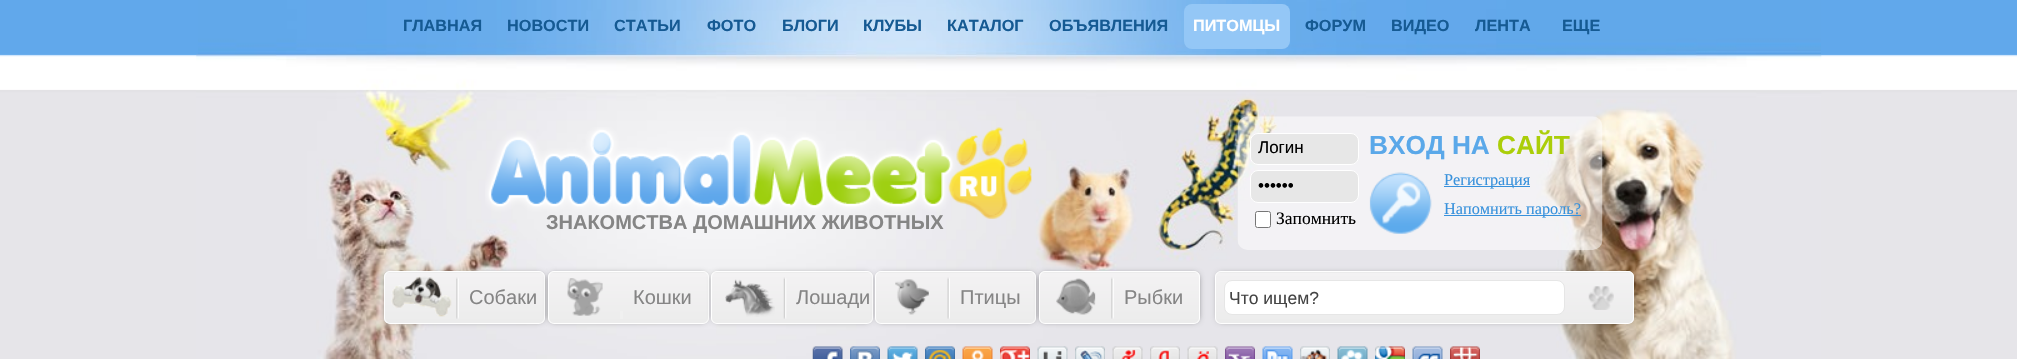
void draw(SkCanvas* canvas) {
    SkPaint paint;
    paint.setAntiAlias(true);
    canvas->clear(0xFFFFFFFF);
    canvas->drawImageRect(SkImages::DeferredFromEncodedData(SkData::MakeFromFileName("img1.png")), SkRect::MakeXYWH(0, 54, 2017, 305), SkSamplingOptions());
    canvas->drawImageRect(SkImages::DeferredFromEncodedData(SkData::MakeFromFileName("img2.png")), SkRect::MakeXYWH(196, 54, 1626, 305), SkSamplingOptions());
    paint.setColor(0xFF61A8EB);
    canvas->drawRect(SkRect::MakeXYWH(0, 0, 2017, 54), paint);
    canvas->drawImageRect(SkImages::DeferredFromEncodedData(SkData::MakeFromFileName("img3.png")), SkRect::MakeXYWH(198, 0, 1623, 54), SkSamplingOptions());
    SkFont font1(fontMgr->matchFamilyStyle("Liberation Sans", SkFontStyle::Bold()), 16.25f);
    font1.setSubpixel(true);
    paint.setColor(0xFF155A93);
    canvas->drawString("ГЛАВНАЯ", 403, 31, font1, paint);
    canvas->drawString("НОВОСТИ", 507, 31, font1, paint);
    canvas->drawString("СТАТЬИ", 614, 31, font1, paint);
    canvas->drawString("ФОТО", 707, 31, font1, paint);
    canvas->drawString("БЛОГИ", 782, 31, font1, paint);
    canvas->drawString("КЛУБЫ", 863, 31, font1, paint);
    canvas->drawString("КАТАЛОГ", 947, 31, font1, paint);
    canvas->drawString("ОБЪЯВЛЕНИЯ", 1049, 31, font1, paint);
    paint.setColor(0xFF94C7F6);
    canvas->drawRoundRect(SkRect::MakeXYWH(1184, 4, 106, 45), 8, 8, paint);
    paint.setColor(0xFFFFFFFF);
    canvas->drawString("ПИТОМЦЫ", 1193, 31, font1, paint);
    paint.setColor(0xFF155A93);
    canvas->drawString("ФОРУМ", 1305, 31, font1, paint);
    canvas->drawString("ВИДЕО", 1391, 31, font1, paint);
    canvas->drawString("ЛЕНТА", 1475, 31, font1, paint);
    canvas->drawString("ЕЩЕ", 1562, 31, font1, paint);
    canvas->drawImageRect(SkImages::DeferredFromEncodedData(SkData::MakeFromFileName("img4.png")), SkRect::MakeXYWH(485, 127, 547, 92), SkSamplingOptions());
    SkFont font2(fontMgr->matchFamilyStyle("Liberation Sans", SkFontStyle::Bold()), 20);
    font2.setSubpixel(true);
    paint.setColor(0xFF858585);
    canvas->drawString("ЗНАКОМСТВА ДОМАШНИХ ЖИВОТНЫХ", 546, 229, font2, paint);
    canvas->drawImageRect(SkImages::DeferredFromEncodedData(SkData::MakeFromFileName("img5.png")), SkRect::MakeXYWH(1237, 116, 366, 134), SkSamplingOptions());
    paint.setColor(0xFFE7E7E7);
    canvas->drawRoundRect(SkRect::MakeXYWH(1250.5f, 133.5f, 108, 31), 7.5f, 7.5f, paint);
    paint.setStyle(SkPaint::kStroke_Style);
    paint.setStrokeWidth(1);
    paint.setColor(0xFFFFFFFF);
    canvas->drawRoundRect(SkRect::MakeXYWH(1250.5f, 133.5f, 108, 31), 7.5f, 7.5f, paint);
    SkFont font3(fontMgr->matchFamilyStyle("Liberation Sans", SkFontStyle::Normal()), 17);
    font3.setSubpixel(true);
    paint.setStyle(SkPaint::kFill_Style);
    paint.setColor(0xFF000000);
    canvas->drawString("Логин", 1258, 153, font3, paint);
    paint.setColor(0xFFE7E7E7);
    canvas->drawRoundRect(SkRect::MakeXYWH(1250.5f, 170.5f, 108, 32), 7.5f, 7.5f, paint);
    paint.setStyle(SkPaint::kStroke_Style);
    paint.setColor(0xFFFFFFFF);
    canvas->drawRoundRect(SkRect::MakeXYWH(1250.5f, 170.5f, 108, 32), 7.5f, 7.5f, paint);
    paint.setStyle(SkPaint::kFill_Style);
    paint.setColor(0xFF000000);
    canvas->drawString("••••••", 1258, 191, font3, paint);
    paint.setColor(0xFFFFFFFF);
    canvas->drawRoundRect(SkRect::MakeXYWH(1255.5f, 211.5f, 15, 16), 2, 2, paint);
    paint.setStyle(SkPaint::kStroke_Style);
    paint.setColor(0xFF767676);
    canvas->drawRoundRect(SkRect::MakeXYWH(1255.5f, 211.5f, 15, 16), 2, 2, paint);
    SkFont font4(fontMgr->matchFamilyStyle("Liberation Serif", SkFontStyle::Normal()), 17.5f);
    font4.setSubpixel(true);
    paint.setStyle(SkPaint::kFill_Style);
    paint.setColor(0xFF000000);
    canvas->drawString("Запомнить", 1276, 224, font4, paint);
    SkFont font5(fontMgr->matchFamilyStyle("Liberation Sans", SkFontStyle::Bold()), 26.25f);
    font5.setSubpixel(true);
    paint.setColor(0xFF5AA8E9);
    canvas->drawString("ВХОД НА", 1369, 154, font5, paint);
    paint.setColor(0xFFABCE09);
    canvas->drawString("САЙТ", 1497, 154, font5, paint);
    canvas->drawImageRect(SkImages::DeferredFromEncodedData(SkData::MakeFromFileName("img6.png")), SkRect::MakeXYWH(1369, 172, 63, 62), SkSamplingOptions());
    paint.setColor(0xFF3791DC);
    canvas->drawRect(SkRect::MakeXYWH(1444, 186, 86, 1), paint);
    SkFont font6(fontMgr->matchFamilyStyle("Liberation Serif", SkFontStyle::Normal()), 16.25f);
    font6.setSubpixel(true);
    canvas->drawString("Регистрация", 1444, 185, font6, paint);
    canvas->drawRect(SkRect::MakeXYWH(1444, 215, 137, 1), paint);
    canvas->drawString("Напомнить пароль?", 1444, 214, font6, paint);
    paint.setColor(0x99000000);
    paint.setMaskFilter(SkMaskFilter::MakeBlur(kNormal_SkBlurStyle, 3));
    canvas->drawRoundRect(SkRect::MakeXYWH(386, 274, 157, 47), 4, 4, paint);
    paint.setMaskFilter(nullptr);
    canvas->save();
    canvas->clipPath(SkPathBuilder().moveTo(390, 271).lineTo(539, 271).cubicTo(542.5f, 271, 545, 273.5f, 545, 277).lineTo(545, 318).cubicTo(545, 321.5f, 542.5f, 324, 539, 324).lineTo(390, 324).cubicTo(386.5f, 324, 384, 321.5f, 384, 318).lineTo(384, 277).cubicTo(384, 273.5f, 386.5f, 271, 390, 271).close().detach(), true);
    {
        const SkColor colors[] = {0xFFF3F2F3, 0xFFECECEC};
        const float stops[] = {0, 1};
        const SkPoint ends[] = {{464, 223}, {464, 273}};
        paint.setShader(SkGradientShader::MakeLinear(ends, colors, stops, 2, SkTileMode::kClamp));
        paint.setAlpha(255);
    }
    canvas->drawRect(SkRect::MakeXYWH(384, 271, 161, 2), paint);
    {
        const SkColor colors[] = {0xFFF3F2F3, 0xFFECECEC};
        const float stops[] = {0, 1};
        const SkPoint ends[] = {{464, 273}, {464, 323}};
        paint.setShader(SkGradientShader::MakeLinear(ends, colors, stops, 2, SkTileMode::kClamp));
        paint.setAlpha(255);
    }
    canvas->drawRect(SkRect::MakeXYWH(384, 273, 161, 50), paint);
    canvas->restore();
    paint.setStyle(SkPaint::kStroke_Style);
    paint.setShader(nullptr);
    paint.setColor(0xFFFFFFFF);
    canvas->drawRoundRect(SkRect::MakeXYWH(384.5f, 271.5f, 160, 52), 5.5f, 5.5f, paint);
    canvas->drawImageRect(SkImages::DeferredFromEncodedData(SkData::MakeFromFileName("img7.png")), SkRect::MakeXYWH(391, 276, 61, 41), SkSamplingOptions());
    canvas->drawImageRect(SkImages::DeferredFromEncodedData(SkData::MakeFromFileName("img8.png")), SkRect::MakeXYWH(456, 277, 3, 42), SkSamplingOptions());
    SkFont font7(fontMgr->matchFamilyStyle("Liberation Sans", SkFontStyle::Normal()), 20);
    font7.setSubpixel(true);
    paint.setStyle(SkPaint::kFill_Style);
    paint.setColor(0xFF858585);
    canvas->drawString("Собаки", 469, 304, font7, paint);
    paint.setColor(0x99000000);
    paint.setMaskFilter(SkMaskFilter::MakeBlur(kNormal_SkBlurStyle, 3));
    canvas->drawRoundRect(SkRect::MakeXYWH(550, 274, 156, 47), 4, 4, paint);
    paint.setMaskFilter(nullptr);
    canvas->save();
    canvas->clipPath(SkPathBuilder().moveTo(554, 271).lineTo(703, 271).cubicTo(706.5f, 271, 709, 273.5f, 709, 277).lineTo(709, 318).cubicTo(709, 321.5f, 706.5f, 324, 703, 324).lineTo(554, 324).cubicTo(550.5f, 324, 548, 321.5f, 548, 318).lineTo(548, 277).cubicTo(548, 273.5f, 550.5f, 271, 554, 271).close().detach(), true);
    {
        const SkColor colors[] = {0xFFF3F2F3, 0xFFECECEC};
        const float stops[] = {0, 1};
        const SkPoint ends[] = {{628, 223}, {628, 273}};
        paint.setShader(SkGradientShader::MakeLinear(ends, colors, stops, 2, SkTileMode::kClamp));
        paint.setAlpha(255);
    }
    canvas->drawRect(SkRect::MakeXYWH(548, 271, 161, 2), paint);
    {
        const SkColor colors[] = {0xFFF3F2F3, 0xFFECECEC};
        const float stops[] = {0, 1};
        const SkPoint ends[] = {{628, 273}, {628, 323}};
        paint.setShader(SkGradientShader::MakeLinear(ends, colors, stops, 2, SkTileMode::kClamp));
        paint.setAlpha(255);
    }
    canvas->drawRect(SkRect::MakeXYWH(548, 273, 161, 50), paint);
    canvas->restore();
    paint.setStyle(SkPaint::kStroke_Style);
    paint.setShader(nullptr);
    paint.setColor(0xFFFFFFFF);
    canvas->drawRoundRect(SkRect::MakeXYWH(548.5f, 271.5f, 160, 52), 5.5f, 5.5f, paint);
    canvas->drawImageRect(SkImages::DeferredFromEncodedData(SkData::MakeFromFileName("img9.png")), SkRect::MakeXYWH(567, 278, 36, 38), SkSamplingOptions());
    paint.setStyle(SkPaint::kFill_Style);
    paint.setColor(0xFFF0F0F0);
    canvas->drawRect(SkRect::MakeXYWH(620, 311, 3, 8), paint);
    paint.setColor(0xFF858585);
    canvas->drawString("Кошки", 633, 304, font7, paint);
    paint.setColor(0x99000000);
    paint.setMaskFilter(SkMaskFilter::MakeBlur(kNormal_SkBlurStyle, 3));
    canvas->drawRoundRect(SkRect::MakeXYWH(714, 274, 156, 47), 4, 4, paint);
    paint.setMaskFilter(nullptr);
    canvas->save();
    canvas->clipPath(SkPathBuilder().moveTo(717, 271).lineTo(867, 271).cubicTo(870.5f, 271, 873, 273.5f, 873, 277).lineTo(873, 318).cubicTo(873, 321.5f, 870.5f, 324, 867, 324).lineTo(717, 324).cubicTo(713.5f, 324, 711, 321.5f, 711, 318).lineTo(711, 277).cubicTo(711, 273.5f, 713.5f, 271, 717, 271).close().detach(), true);
    {
        const SkColor colors[] = {0xFFF3F2F3, 0xFFECECEC};
        const float stops[] = {0, 1};
        const SkPoint ends[] = {{792, 223}, {792, 273}};
        paint.setShader(SkGradientShader::MakeLinear(ends, colors, stops, 2, SkTileMode::kClamp));
        paint.setAlpha(255);
    }
    canvas->drawRect(SkRect::MakeXYWH(711, 271, 162, 2), paint);
    {
        const SkColor colors[] = {0xFFF3F2F3, 0xFFECECEC};
        const float stops[] = {0, 1};
        const SkPoint ends[] = {{792, 273}, {792, 323}};
        paint.setShader(SkGradientShader::MakeLinear(ends, colors, stops, 2, SkTileMode::kClamp));
        paint.setAlpha(255);
    }
    canvas->drawRect(SkRect::MakeXYWH(711, 273, 162, 50), paint);
    canvas->restore();
    paint.setStyle(SkPaint::kStroke_Style);
    paint.setShader(nullptr);
    paint.setColor(0xFFFFFFFF);
    canvas->drawRoundRect(SkRect::MakeXYWH(711.5f, 271.5f, 161, 52), 5.5f, 5.5f, paint);
    canvas->drawImageRect(SkImages::DeferredFromEncodedData(SkData::MakeFromFileName("img10.png")), SkRect::MakeXYWH(725, 279, 50, 38), SkSamplingOptions());
    canvas->drawImageRect(SkImages::DeferredFromEncodedData(SkData::MakeFromFileName("img11.png")), SkRect::MakeXYWH(783, 277, 4, 42), SkSamplingOptions());
    paint.setStyle(SkPaint::kFill_Style);
    paint.setColor(0xFF858585);
    canvas->drawString("Лошади", 796, 304, font7, paint);
    paint.setColor(0x99000000);
    paint.setMaskFilter(SkMaskFilter::MakeBlur(kNormal_SkBlurStyle, 3));
    canvas->drawRoundRect(SkRect::MakeXYWH(878, 274, 156, 47), 4, 4, paint);
    paint.setMaskFilter(nullptr);
    canvas->save();
    canvas->clipPath(SkPathBuilder().moveTo(881, 271).lineTo(1030, 271).cubicTo(1033.5f, 271, 1036, 273.5f, 1036, 277).lineTo(1036, 318).cubicTo(1036, 321.5f, 1033.5f, 324, 1030, 324).lineTo(881, 324).cubicTo(877.5f, 324, 875, 321.5f, 875, 318).lineTo(875, 277).cubicTo(875, 273.5f, 877.5f, 271, 881, 271).close().detach(), true);
    {
        const SkColor colors[] = {0xFFF3F2F3, 0xFFECECEC};
        const float stops[] = {0, 1};
        const SkPoint ends[] = {{956, 223}, {956, 273}};
        paint.setShader(SkGradientShader::MakeLinear(ends, colors, stops, 2, SkTileMode::kClamp));
        paint.setAlpha(255);
    }
    canvas->drawRect(SkRect::MakeXYWH(875, 271, 161, 2), paint);
    {
        const SkColor colors[] = {0xFFF3F2F3, 0xFFECECEC};
        const float stops[] = {0, 1};
        const SkPoint ends[] = {{956, 273}, {956, 323}};
        paint.setShader(SkGradientShader::MakeLinear(ends, colors, stops, 2, SkTileMode::kClamp));
        paint.setAlpha(255);
    }
    canvas->drawRect(SkRect::MakeXYWH(875, 273, 161, 50), paint);
    canvas->restore();
    paint.setStyle(SkPaint::kStroke_Style);
    paint.setShader(nullptr);
    paint.setColor(0xFFFFFFFF);
    canvas->drawRoundRect(SkRect::MakeXYWH(875.5f, 271.5f, 160, 52), 5.5f, 5.5f, paint);
    canvas->drawImageRect(SkImages::DeferredFromEncodedData(SkData::MakeFromFileName("img12.png")), SkRect::MakeXYWH(895, 279, 34, 36), SkSamplingOptions());
    canvas->drawImageRect(SkImages::DeferredFromEncodedData(SkData::MakeFromFileName("img13.png")), SkRect::MakeXYWH(947, 277, 3, 42), SkSamplingOptions());
    paint.setStyle(SkPaint::kFill_Style);
    paint.setColor(0xFF858585);
    canvas->drawString("Птицы", 960, 304, font7, paint);
    paint.setColor(0x99000000);
    paint.setMaskFilter(SkMaskFilter::MakeBlur(kNormal_SkBlurStyle, 3));
    canvas->drawRoundRect(SkRect::MakeXYWH(1041, 274, 157, 47), 4, 4, paint);
    paint.setMaskFilter(nullptr);
    canvas->save();
    canvas->clipPath(SkPathBuilder().moveTo(1045, 271).lineTo(1194, 271).cubicTo(1197.5f, 271, 1200, 273.5f, 1200, 277).lineTo(1200, 318).cubicTo(1200, 321.5f, 1197.5f, 324, 1194, 324).lineTo(1045, 324).cubicTo(1041.5f, 324, 1039, 321.5f, 1039, 318).lineTo(1039, 277).cubicTo(1039, 273.5f, 1041.5f, 271, 1045, 271).close().detach(), true);
    {
        const SkColor colors[] = {0xFFF3F2F3, 0xFFECECEC};
        const float stops[] = {0, 1};
        const SkPoint ends[] = {{1119, 223}, {1119, 273}};
        paint.setShader(SkGradientShader::MakeLinear(ends, colors, stops, 2, SkTileMode::kClamp));
        paint.setAlpha(255);
    }
    canvas->drawRect(SkRect::MakeXYWH(1039, 271, 161, 2), paint);
    {
        const SkColor colors[] = {0xFFF3F2F3, 0xFFECECEC};
        const float stops[] = {0, 1};
        const SkPoint ends[] = {{1119, 273}, {1119, 323}};
        paint.setShader(SkGradientShader::MakeLinear(ends, colors, stops, 2, SkTileMode::kClamp));
        paint.setAlpha(255);
    }
    canvas->drawRect(SkRect::MakeXYWH(1039, 273, 161, 50), paint);
    canvas->restore();
    paint.setStyle(SkPaint::kStroke_Style);
    paint.setShader(nullptr);
    paint.setColor(0xFFFFFFFF);
    canvas->drawRoundRect(SkRect::MakeXYWH(1039.5f, 271.5f, 160, 52), 5.5f, 5.5f, paint);
    canvas->drawImageRect(SkImages::DeferredFromEncodedData(SkData::MakeFromFileName("img14.png")), SkRect::MakeXYWH(1056, 278, 40, 37), SkSamplingOptions());
    canvas->drawImageRect(SkImages::DeferredFromEncodedData(SkData::MakeFromFileName("img8.png")), SkRect::MakeXYWH(1111, 277, 3, 42), SkSamplingOptions());
    paint.setStyle(SkPaint::kFill_Style);
    paint.setColor(0xFF858585);
    canvas->drawString("Рыбки", 1124, 304, font7, paint);
    paint.setColor(0x80000000);
    paint.setMaskFilter(SkMaskFilter::MakeBlur(kNormal_SkBlurStyle, 3));
    canvas->drawRoundRect(SkRect::MakeXYWH(1218, 274, 413, 47), 4, 4, paint);
    paint.setMaskFilter(nullptr);
    canvas->save();
    canvas->clipPath(SkPathBuilder().moveTo(1221, 271).lineTo(1628, 271).cubicTo(1631.5f, 271, 1634, 273.5f, 1634, 277).lineTo(1634, 318).cubicTo(1634, 321.5f, 1631.5f, 324, 1628, 324).lineTo(1221, 324).cubicTo(1217.5f, 324, 1215, 321.5f, 1215, 318).lineTo(1215, 277).cubicTo(1215, 273.5f, 1217.5f, 271, 1221, 271).close().detach(), true);
    {
        const SkColor colors[] = {0xFFF3F2F3, 0xFFECECEC};
        const float stops[] = {0, 1};
        const SkPoint ends[] = {{1424, 222}, {1424, 273}};
        paint.setShader(SkGradientShader::MakeLinear(ends, colors, stops, 2, SkTileMode::kClamp));
        paint.setAlpha(255);
    }
    canvas->drawRect(SkRect::MakeXYWH(1215, 271, 419, 2), paint);
    {
        const SkColor colors[] = {0xFFF3F2F3, 0xFFECECEC};
        const float stops[] = {0, 1};
        const SkPoint ends[] = {{1424, 272}, {1424, 323}};
        paint.setShader(SkGradientShader::MakeLinear(ends, colors, stops, 2, SkTileMode::kClamp));
        paint.setAlpha(255);
    }
    canvas->drawRect(SkRect::MakeXYWH(1215, 273, 419, 50), paint);
    canvas->restore();
    paint.setStyle(SkPaint::kStroke_Style);
    paint.setShader(nullptr);
    paint.setColor(0xFFFFFFFF);
    canvas->drawRoundRect(SkRect::MakeXYWH(1215.5f, 271.5f, 418, 52), 5.5f, 5.5f, paint);
    paint.setStyle(SkPaint::kFill_Style);
    canvas->drawRoundRect(SkRect::MakeXYWH(1224.5f, 280.5f, 340, 34), 7.5f, 7.5f, paint);
    paint.setStyle(SkPaint::kStroke_Style);
    paint.setColor(0xFFE6E6E6);
    canvas->drawRoundRect(SkRect::MakeXYWH(1224.5f, 280.5f, 340, 34), 7.5f, 7.5f, paint);
    SkFont font8(fontMgr->matchFamilyStyle("Liberation Sans", SkFontStyle::Normal()), 17.5f);
    font8.setSubpixel(true);
    paint.setStyle(SkPaint::kFill_Style);
    paint.setColor(0xFF444444);
    canvas->drawString("Что ищем?", 1229, 304, font8, paint);
    canvas->drawImageRect(SkImages::DeferredFromEncodedData(SkData::MakeFromFileName("img15.png")), SkRect::MakeXYWH(1588, 286, 26, 24), SkSamplingOptions());
    canvas->drawImageRect(SkImages::DeferredFromEncodedData(SkData::MakeFromFileName("img16.png")), SkRect::MakeXYWH(812, 346, 31, 13), SkSamplingOptions());
    canvas->drawImageRect(SkImages::DeferredFromEncodedData(SkData::MakeFromFileName("img17.png")), SkRect::MakeXYWH(850, 346, 30, 13), SkSamplingOptions());
    canvas->drawImageRect(SkImages::DeferredFromEncodedData(SkData::MakeFromFileName("img18.png")), SkRect::MakeXYWH(887, 346, 31, 13), SkSamplingOptions());
    canvas->drawImageRect(SkImages::DeferredFromEncodedData(SkData::MakeFromFileName("img19.png")), SkRect::MakeXYWH(925, 346, 30, 13), SkSamplingOptions());
    canvas->drawImageRect(SkImages::DeferredFromEncodedData(SkData::MakeFromFileName("img20.png")), SkRect::MakeXYWH(962, 346, 31, 13), SkSamplingOptions());
    canvas->drawImageRect(SkImages::DeferredFromEncodedData(SkData::MakeFromFileName("img21.png")), SkRect::MakeXYWH(1000, 346, 30, 13), SkSamplingOptions());
    canvas->drawImageRect(SkImages::DeferredFromEncodedData(SkData::MakeFromFileName("img22.png")), SkRect::MakeXYWH(1037, 346, 31, 13), SkSamplingOptions());
    canvas->drawImageRect(SkImages::DeferredFromEncodedData(SkData::MakeFromFileName("img23.png")), SkRect::MakeXYWH(1075, 346, 30, 13), SkSamplingOptions());
    canvas->drawImageRect(SkImages::DeferredFromEncodedData(SkData::MakeFromFileName("img24.png")), SkRect::MakeXYWH(1112, 346, 31, 13), SkSamplingOptions());
    canvas->drawImageRect(SkImages::DeferredFromEncodedData(SkData::MakeFromFileName("img25.png")), SkRect::MakeXYWH(1150, 346, 30, 13), SkSamplingOptions());
    canvas->drawImageRect(SkImages::DeferredFromEncodedData(SkData::MakeFromFileName("img26.png")), SkRect::MakeXYWH(1187, 346, 31, 13), SkSamplingOptions());
    canvas->drawImageRect(SkImages::DeferredFromEncodedData(SkData::MakeFromFileName("img27.png")), SkRect::MakeXYWH(1225, 346, 30, 13), SkSamplingOptions());
    canvas->drawImageRect(SkImages::DeferredFromEncodedData(SkData::MakeFromFileName("img28.png")), SkRect::MakeXYWH(1262, 346, 31, 13), SkSamplingOptions());
    canvas->drawImageRect(SkImages::DeferredFromEncodedData(SkData::MakeFromFileName("img29.png")), SkRect::MakeXYWH(1300, 346, 30, 13), SkSamplingOptions());
    canvas->drawImageRect(SkImages::DeferredFromEncodedData(SkData::MakeFromFileName("img30.png")), SkRect::MakeXYWH(1337, 346, 31, 13), SkSamplingOptions());
    canvas->drawImageRect(SkImages::DeferredFromEncodedData(SkData::MakeFromFileName("img31.png")), SkRect::MakeXYWH(1375, 346, 30, 13), SkSamplingOptions());
    canvas->drawImageRect(SkImages::DeferredFromEncodedData(SkData::MakeFromFileName("img32.png")), SkRect::MakeXYWH(1412, 346, 31, 13), SkSamplingOptions());
    canvas->drawImageRect(SkImages::DeferredFromEncodedData(SkData::MakeFromFileName("img33.png")), SkRect::MakeXYWH(1450, 346, 30, 13), SkSamplingOptions());
}
